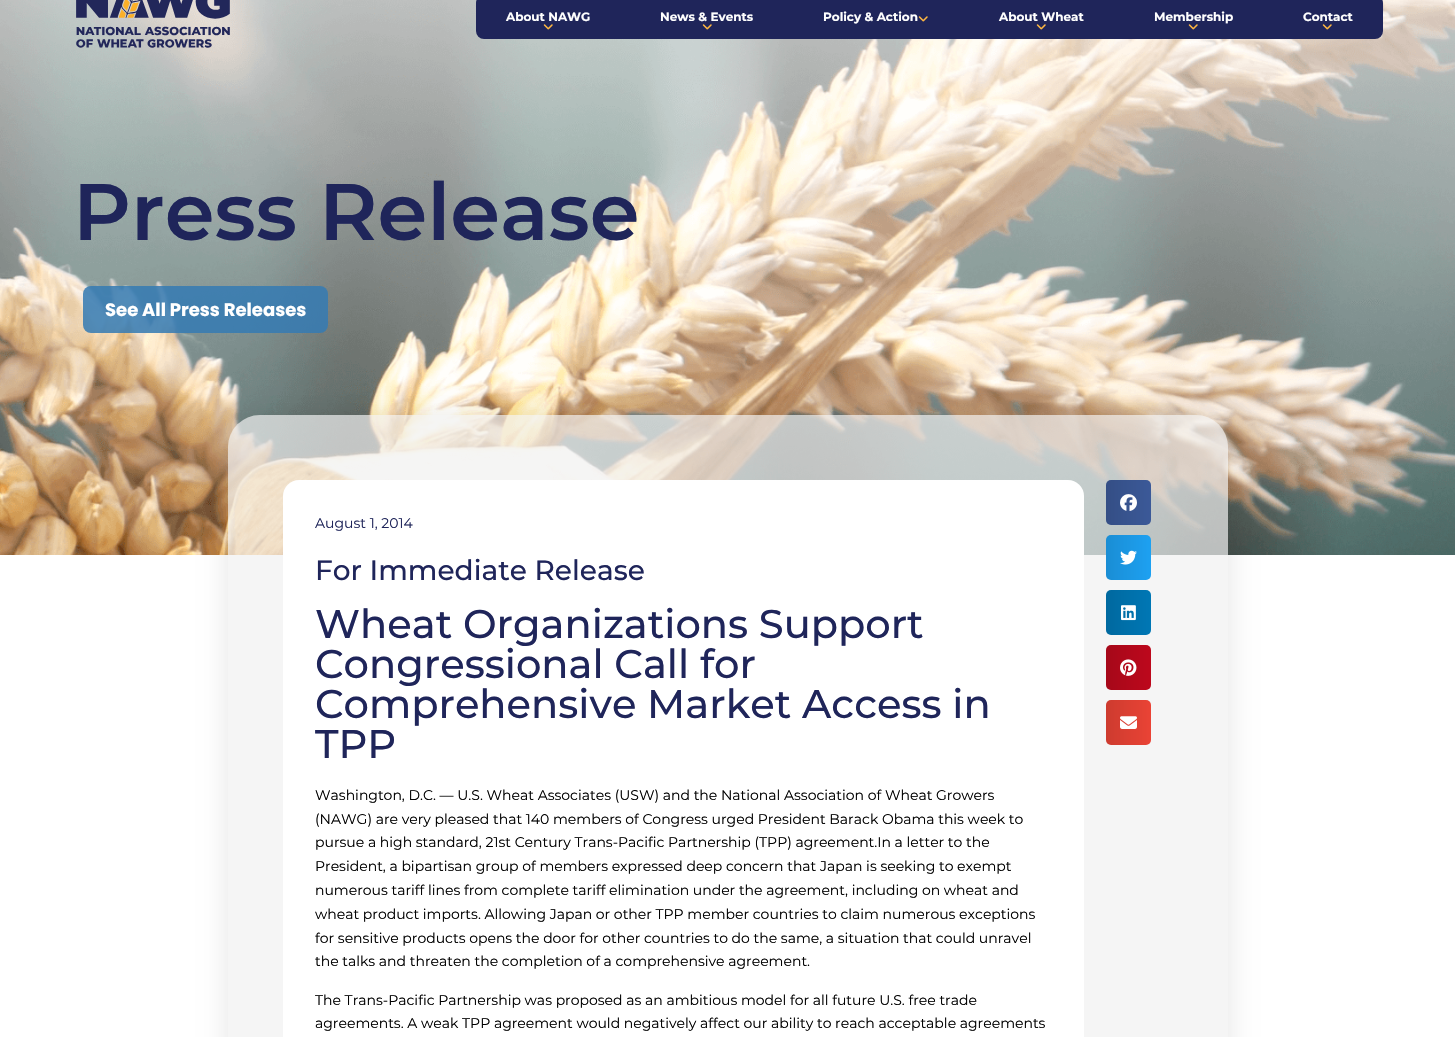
void draw(SkCanvas* canvas) {
    SkPaint paint;
    paint.setAntiAlias(true);
    canvas->clear(0xFFFFFFFF);
    canvas->drawImageRect(SkImages::DeferredFromEncodedData(SkData::MakeFromFileName("img3.png")), SkRect::MakeXYWH(0, 0, 1455, 555), SkSamplingOptions());
    canvas->drawImageRect(SkImages::DeferredFromEncodedData(SkData::MakeFromFileName("img1.png")), SkRect::MakeXYWH(76, 0, 154, 48), SkSamplingOptions());
    paint.setColor(0xFF1F255A);
    canvas->drawRoundRect(SkRect::MakeXYWH(476, -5, 907, 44), 8, 8, paint);
    SkFont font1(fontMgr->matchFamilyStyle("Montserrat", SkFontStyle::Bold()), 12);
    font1.setSubpixel(true);
    paint.setColor(0xFFFFFFFF);
    canvas->drawString("About NAWG", 506, 21, font1, paint);
    canvas->drawImageRect(SkImages::DeferredFromEncodedData(SkData::MakeFromFileName("img2.png")), SkRect::MakeXYWH(543, 24, 10, 6), SkSamplingOptions());
    canvas->drawString("News & Events", 660, 21, font1, paint);
    canvas->drawImageRect(SkImages::DeferredFromEncodedData(SkData::MakeFromFileName("img2.png")), SkRect::MakeXYWH(702, 24, 10, 6), SkSamplingOptions());
    canvas->drawString("Policy & Action", 823, 21, font1, paint);
    canvas->drawImageRect(SkImages::DeferredFromEncodedData(SkData::MakeFromFileName("img2.png")), SkRect::MakeXYWH(918, 16, 10, 6), SkSamplingOptions());
    canvas->drawString("About Wheat", 999, 21, font1, paint);
    canvas->drawImageRect(SkImages::DeferredFromEncodedData(SkData::MakeFromFileName("img2.png")), SkRect::MakeXYWH(1036, 24, 10, 6), SkSamplingOptions());
    canvas->drawString("Membership", 1154, 21, font1, paint);
    canvas->drawImageRect(SkImages::DeferredFromEncodedData(SkData::MakeFromFileName("img2.png")), SkRect::MakeXYWH(1188, 24, 10, 6), SkSamplingOptions());
    canvas->drawString("Contact", 1303, 21, font1, paint);
    canvas->drawImageRect(SkImages::DeferredFromEncodedData(SkData::MakeFromFileName("img2.png")), SkRect::MakeXYWH(1322, 24, 10, 6), SkSamplingOptions());
    SkFont font2(fontMgr->matchFamilyStyle("Montserrat", SkFontStyle(600, SkFontStyle::kNormal_Width, SkFontStyle::kUpright_Slant)), 80);
    font2.setSubpixel(true);
    paint.setColor(0xFF1F255A);
    canvas->drawString("Press Release", 73, 240, font2, paint);
    paint.setColor(0xDB347AB2);
    canvas->drawRoundRect(SkRect::MakeXYWH(83, 286, 245, 47), 8, 8, paint);
    SkFont font3(fontMgr->matchFamilyStyle("Poppins", SkFontStyle::Bold()), 18);
    font3.setSubpixel(true);
    paint.setColor(0xFFFFFFFF);
    canvas->drawString("See All Press Releases", 105, 316, font3, paint);
    canvas->save();
    canvas->clipPath(SkPathBuilder(SkPathFillType::kEvenOdd).moveTo(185, 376).lineTo(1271, 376).lineTo(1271, 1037).lineTo(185, 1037).close().moveTo(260, 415).lineTo(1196, 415).cubicTo(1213.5f, 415, 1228, 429.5f, 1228, 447).lineTo(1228, 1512).cubicTo(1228, 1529.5f, 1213.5f, 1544, 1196, 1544).lineTo(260, 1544).cubicTo(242.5f, 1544, 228, 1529.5f, 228, 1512).lineTo(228, 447).cubicTo(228, 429.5f, 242.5f, 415, 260, 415).close().detach(), true);
    paint.setColor(0x1A000000);
    paint.setMaskFilter(SkMaskFilter::MakeBlur(kNormal_SkBlurStyle, 14));
    canvas->drawRoundRect(SkRect::MakeXYWH(228, 419, 1000, 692), 32, 32, paint);
    paint.setMaskFilter(nullptr);
    canvas->restore();
    paint.setColor(0xB0F1F1F1);
    canvas->drawRoundRect(SkRect::MakeXYWH(228, 415, 1000, 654), 32, 32, paint);
    paint.setColor(0xFFFFFFFF);
    canvas->drawRoundRect(SkRect::MakeXYWH(283, 480, 801, 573), 16, 16, paint);
    SkFont font4(fontMgr->matchFamilyStyle("Montserrat", SkFontStyle::Normal()), 14);
    font4.setSubpixel(true);
    paint.setColor(0xFF1F255A);
    canvas->drawString("August 1, 2014", 315, 528, font4, paint);
    SkFont font5(fontMgr->matchFamilyStyle("Montserrat", SkFontStyle(500, SkFontStyle::kNormal_Width, SkFontStyle::kUpright_Slant)), 28);
    font5.setSubpixel(true);
    canvas->drawString("For Immediate Release", 315, 580, font5, paint);
    SkFont font6(fontMgr->matchFamilyStyle("Montserrat", SkFontStyle(500, SkFontStyle::kNormal_Width, SkFontStyle::kUpright_Slant)), 40);
    font6.setSubpixel(true);
    canvas->drawString("Wheat Organizations Support", 315, 638, font6, paint);
    canvas->drawString("Congressional Call for", 315, 678, font6, paint);
    canvas->drawString("Comprehensive Market Access in", 315, 718, font6, paint);
    canvas->drawString("TPP", 315, 758, font6, paint);
    paint.setColor(0xFF000000);
    canvas->drawString("Washington, D.C. — U.S. Wheat Associates (USW) and the National Association of Wheat Growers", 315, 800, font4, paint);
    canvas->drawString("(NAWG) are very pleased that 140 members of Congress urged President Barack Obama this week to", 315, 824, font4, paint);
    canvas->drawString("pursue a high standard, 21st Century Trans-Pacific Partnership (TPP) agreement.In a letter to the", 315, 847, font4, paint);
    canvas->drawString("President, a bipartisan group of members expressed deep concern that Japan is seeking to exempt", 315, 871, font4, paint);
    canvas->drawString("numerous tariff lines from complete tariff elimination under the agreement, including on wheat and", 315, 895, font4, paint);
    canvas->drawString("wheat product imports. Allowing Japan or other TPP member countries to claim numerous exceptions", 315, 919, font4, paint);
    canvas->drawString("for sensitive products opens the door for other countries to do the same, a situation that could unravel", 315, 943, font4, paint);
    canvas->drawString("the talks and threaten the completion of a comprehensive agreement.", 315, 966, font4, paint);
    canvas->drawString("The Trans-Pacific Partnership was proposed as an ambitious model for all future U.S. free trade", 315, 1005, font4, paint);
    canvas->drawString("agreements. A weak TPP agreement would negatively affect our ability to reach acceptable agreements", 315, 1028, font4, paint);
    paint.setColor(0xFF3B5998);
    canvas->drawRoundRect(SkRect::MakeXYWH(1106, 480, 45, 45), 5, 5, paint);
    {
        const SkColor colors[] = {0x1F000000, 0x00000000};
        const float stops[] = {0, 1};
        const SkPoint ends[] = {{1106, 503}, {1151, 503}};
        paint.setShader(SkGradientShader::MakeLinear(ends, colors, stops, 2, SkTileMode::kClamp));
        paint.setAlpha(255);
    }
    canvas->drawRoundRect(SkRect::MakeXYWH(1106, 480, 45, 45), 5, 5, paint);
    canvas->drawImageRect(SkImages::DeferredFromEncodedData(SkData::MakeFromFileName("img4.png")), SkRect::MakeXYWH(1120, 494, 17, 17), SkSamplingOptions());
    paint.setShader(nullptr);
    paint.setColor(0xFF1DA1F2);
    canvas->drawRoundRect(SkRect::MakeXYWH(1106, 535, 45, 45), 5, 5, paint);
    {
        const SkColor colors[] = {0x1F000000, 0x00000000};
        const float stops[] = {0, 1};
        const SkPoint ends[] = {{1106, 558}, {1151, 558}};
        paint.setShader(SkGradientShader::MakeLinear(ends, colors, stops, 2, SkTileMode::kClamp));
        paint.setAlpha(255);
    }
    canvas->drawRoundRect(SkRect::MakeXYWH(1106, 535, 45, 45), 5, 5, paint);
    canvas->drawImageRect(SkImages::DeferredFromEncodedData(SkData::MakeFromFileName("img5.png")), SkRect::MakeXYWH(1120, 550, 17, 15), SkSamplingOptions());
    paint.setShader(nullptr);
    paint.setColor(0xFF0077B5);
    canvas->drawRoundRect(SkRect::MakeXYWH(1106, 590, 45, 45), 5, 5, paint);
    {
        const SkColor colors[] = {0x1F000000, 0x00000000};
        const float stops[] = {0, 1};
        const SkPoint ends[] = {{1106, 613}, {1151, 613}};
        paint.setShader(SkGradientShader::MakeLinear(ends, colors, stops, 2, SkTileMode::kClamp));
        paint.setAlpha(255);
    }
    canvas->drawRoundRect(SkRect::MakeXYWH(1106, 590, 45, 45), 5, 5, paint);
    canvas->drawImageRect(SkImages::DeferredFromEncodedData(SkData::MakeFromFileName("img6.png")), SkRect::MakeXYWH(1121, 605, 15, 16), SkSamplingOptions());
    paint.setShader(nullptr);
    paint.setColor(0xFFBD081C);
    canvas->drawRoundRect(SkRect::MakeXYWH(1106, 645, 45, 45), 5, 5, paint);
    {
        const SkColor colors[] = {0x1F000000, 0x00000000};
        const float stops[] = {0, 1};
        const SkPoint ends[] = {{1106, 668}, {1151, 668}};
        paint.setShader(SkGradientShader::MakeLinear(ends, colors, stops, 2, SkTileMode::kClamp));
        paint.setAlpha(255);
    }
    canvas->drawRoundRect(SkRect::MakeXYWH(1106, 645, 45, 45), 5, 5, paint);
    canvas->drawImageRect(SkImages::DeferredFromEncodedData(SkData::MakeFromFileName("img7.png")), SkRect::MakeXYWH(1120, 659, 17, 17), SkSamplingOptions());
    paint.setShader(nullptr);
    paint.setColor(0xFFEA4335);
    canvas->drawRoundRect(SkRect::MakeXYWH(1106, 700, 45, 45), 5, 5, paint);
    {
        const SkColor colors[] = {0x1F000000, 0x00000000};
        const float stops[] = {0, 1};
        const SkPoint ends[] = {{1106, 723}, {1151, 723}};
        paint.setShader(SkGradientShader::MakeLinear(ends, colors, stops, 2, SkTileMode::kClamp));
        paint.setAlpha(255);
    }
    canvas->drawRoundRect(SkRect::MakeXYWH(1106, 700, 45, 45), 5, 5, paint);
    canvas->drawImageRect(SkImages::DeferredFromEncodedData(SkData::MakeFromFileName("img8.png")), SkRect::MakeXYWH(1120, 716, 17, 13), SkSamplingOptions());
}
